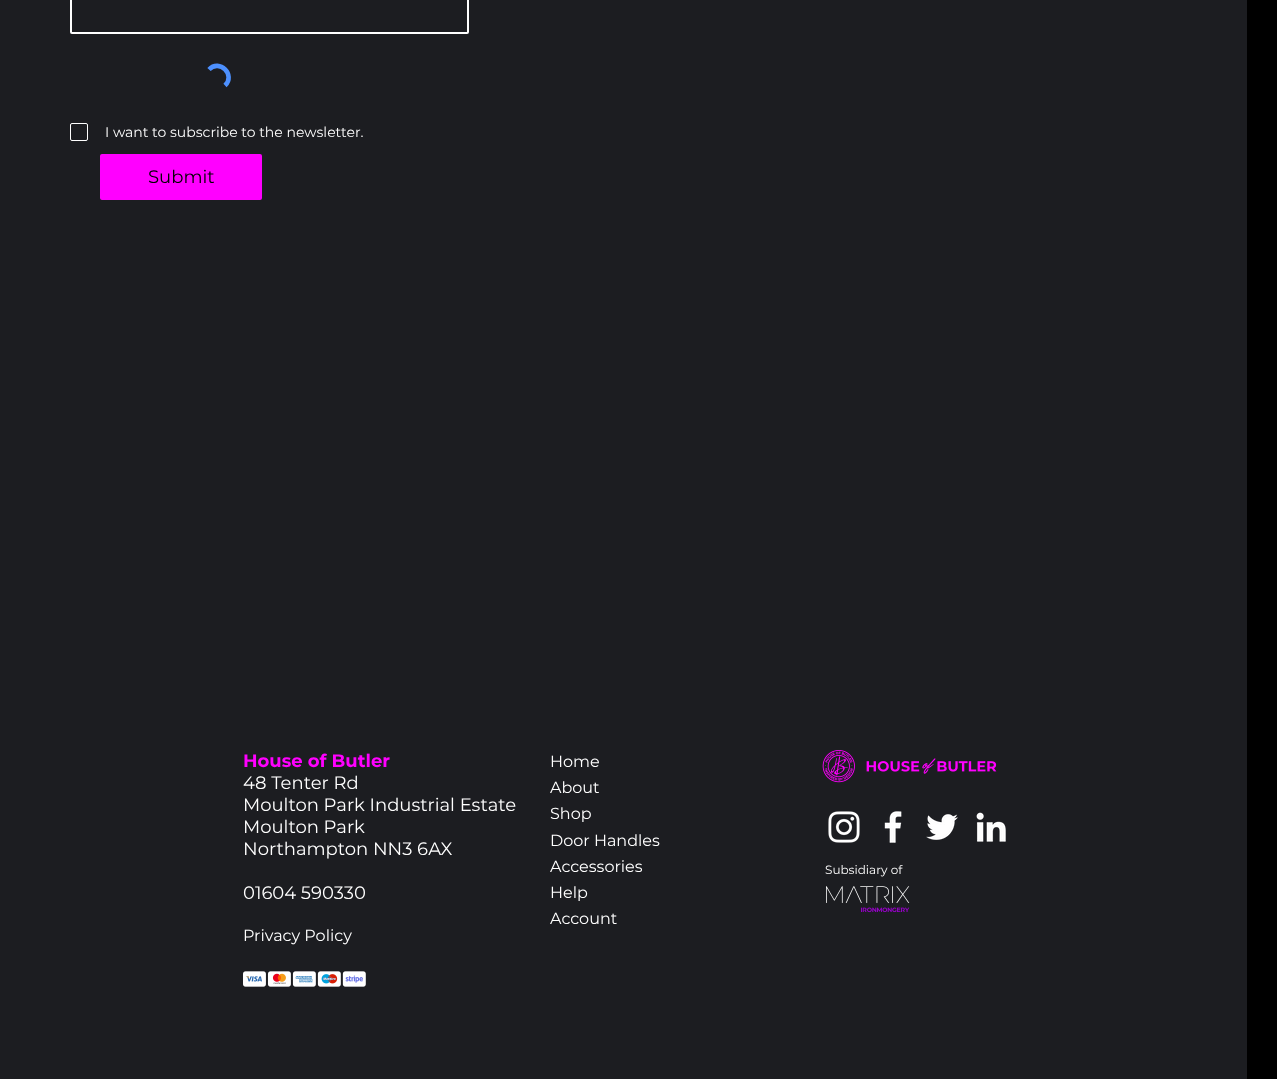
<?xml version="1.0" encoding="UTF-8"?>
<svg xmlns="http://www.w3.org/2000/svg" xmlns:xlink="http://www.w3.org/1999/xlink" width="1277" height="1079">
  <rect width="100%" height="100%" fill="#000000" />
  <rect width="1247" height="1079" fill="#1c1d21" />
  <rect x="71" y="-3" width="397" height="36" rx="1" fill="none" stroke="#ffffff" stroke-width="2" />
  <path d="M 209 69.5 c 10.5 -11 27 5.5 16 16" fill="none" stroke="#4d90fe" stroke-width="4.6" />
  <rect x="70.5" y="123.5" width="17" height="17" rx="1.5" fill="none" stroke="#ffffff" />
  <rect x="100" y="154" width="162" height="46" rx="2" fill="#ff00ff" />
  <image x="243" y="971" width="123" height="16" xlink:href="image1.png" />
  <image x="822" y="750" width="175" height="33" xlink:href="image2.png" />
  <image x="828" y="811" width="32" height="32" xlink:href="image3.png" />
  <image x="884" y="811" width="18" height="32" xlink:href="image4.png" />
  <image x="926" y="814" width="32" height="26" xlink:href="image5.png" />
  <image x="976" y="812" width="30" height="30" xlink:href="image6.png" />
  <image x="826" y="886" width="84" height="27" xlink:href="image7.png" />
  <text x="105" y="137" style="font-family: Montserrat; font-size: 14px; fill: #ffffff">I want to subscribe to the newsletter.</text>
  <text x="148" y="183" style="font-family: Montserrat; font-size: 18px; fill: #000000">Submit</text>
  <text x="243" y="767" style="font-family: Montserrat; font-size: 18px; font-weight: bold; fill: #ff00ff">House of Butler</text>
  <text x="243" y="789" style="font-family: Montserrat; font-size: 18px; fill: #ffffff">48 Tenter Rd</text>
  <text x="243" y="811" style="font-family: Montserrat; font-size: 18px; fill: #ffffff">Moulton Park Industrial Estate</text>
  <text x="243" y="833" style="font-family: Montserrat; font-size: 18px; fill: #ffffff">Moulton Park</text>
  <text x="243" y="855" style="font-family: Montserrat; font-size: 18px; fill: #ffffff">Northampton NN3 6AX</text>
  <text x="243" y="899" style="font-family: Montserrat; font-size: 18px; fill: #ffffff">01604 590330</text>
  <text x="243" y="941" style="font-family: Montserrat; font-size: 16px; fill: #ffffff">Privacy Policy</text>
  <text x="550" y="767" style="font-family: Montserrat; font-size: 16px; fill: #ffffff">Home</text>
  <text x="550" y="793" style="font-family: Montserrat; font-size: 16px; fill: #ffffff">About</text>
  <text x="550" y="819" style="font-family: Montserrat; font-size: 16px; fill: #ffffff">Shop</text>
  <text x="550" y="846" style="font-family: Montserrat; font-size: 16px; fill: #ffffff">Door Handles</text>
  <text x="550" y="872" style="font-family: Montserrat; font-size: 16px; fill: #ffffff">Accessories</text>
  <text x="550" y="898" style="font-family: Montserrat; font-size: 16px; fill: #ffffff">Help</text>
  <text x="550" y="924" style="font-family: Montserrat; font-size: 16px; fill: #ffffff">Account</text>
  <text x="825" y="874" style="font-family: Montserrat; font-size: 12px; fill: #ffffff">Subsidiary of</text>
</svg>
